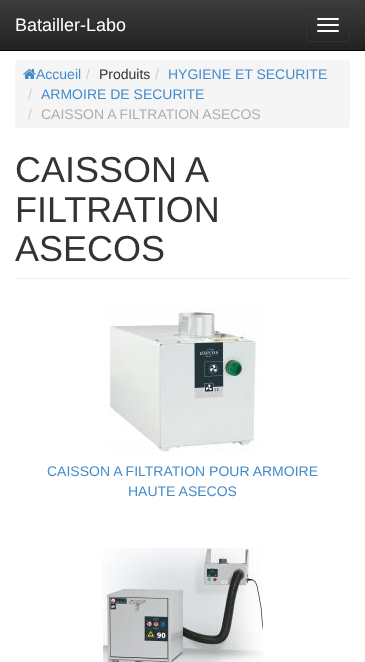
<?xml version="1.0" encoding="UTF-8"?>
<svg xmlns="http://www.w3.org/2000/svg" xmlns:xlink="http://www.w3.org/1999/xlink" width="365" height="662">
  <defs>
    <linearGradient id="g1" gradientUnits="userSpaceOnUse" x1="183" y1="0" x2="183" y2="50"><stop offset="0" stop-color="#3c3c3c" /><stop offset="1" stop-color="#222222" /></linearGradient>
  </defs>
  <rect width="100%" height="100%" fill="#ffffff" />
  <rect width="365" height="50" fill="url(#g1)" />
  <rect y="50" width="365" height="1" fill="#080808" />
  <rect x="306.5" y="8.5" width="43" height="33" rx="3.5" fill="none" stroke="#333333" />
  <rect x="317" y="18" width="22" height="2" rx="1" fill="#ffffff" />
  <rect x="317" y="24" width="22" height="2" rx="1" fill="#ffffff" />
  <rect x="317" y="30" width="22" height="2" rx="1" fill="#ffffff" />
  <rect x="15" y="60" width="335" height="68" rx="4" fill="#f5f5f5" />
  <image x="23" y="69" width="13" height="10" xlink:href="image1.png" />
  <rect x="15" y="278" width="335" height="1" fill="#eeeeee" />
  <image x="106" y="307" width="156" height="145" xlink:href="image2.png" />
  <image x="103" y="548" width="160" height="114" xlink:href="image3.png" />
  <text x="15" y="31" style="font-family: Liberation Sans; font-size: 18px; fill: #ffffff">Batailler-Labo</text>
  <text x="36" y="79" style="font-family: Liberation Sans; font-size: 14px; fill: #428bca">Accueil</text>
  <text x="86" y="79" style="font-family: Liberation Sans; font-size: 14px; fill: #cccccc">/</text>
  <text x="99" y="79" style="font-family: Liberation Sans; font-size: 14px; fill: #333333">Produits</text>
  <text x="155" y="79" style="font-family: Liberation Sans; font-size: 14px; fill: #cccccc">/</text>
  <text x="168" y="79" style="font-family: Liberation Sans; font-size: 14px; fill: #428bca">HYGIENE ET SECURITE</text>
  <text x="28" y="99" style="font-family: Liberation Sans; font-size: 14px; fill: #cccccc">/</text>
  <text x="41" y="99" style="font-family: Liberation Sans; font-size: 14px; fill: #428bca">ARMOIRE DE SECURITE</text>
  <text x="28" y="119" style="font-family: Liberation Sans; font-size: 14px; fill: #cccccc">/</text>
  <text x="41" y="119" style="font-family: Liberation Sans; font-size: 14px; fill: #aeaeae">CAISSON A FILTRATION ASECOS</text>
  <text x="15" y="182" style="font-family: Liberation Sans; font-size: 36px; fill: #333333">CAISSON A</text>
  <text x="15" y="222" style="font-family: Liberation Sans; font-size: 36px; fill: #333333">FILTRATION</text>
  <text x="15" y="261" style="font-family: Liberation Sans; font-size: 36px; fill: #333333">ASECOS</text>
  <text x="47" y="476" style="font-family: Liberation Sans; font-size: 14px; fill: #428bca">CAISSON A FILTRATION POUR ARMOIRE</text>
  <text x="128" y="496" style="font-family: Liberation Sans; font-size: 14px; fill: #428bca">HAUTE ASECOS</text>
</svg>
